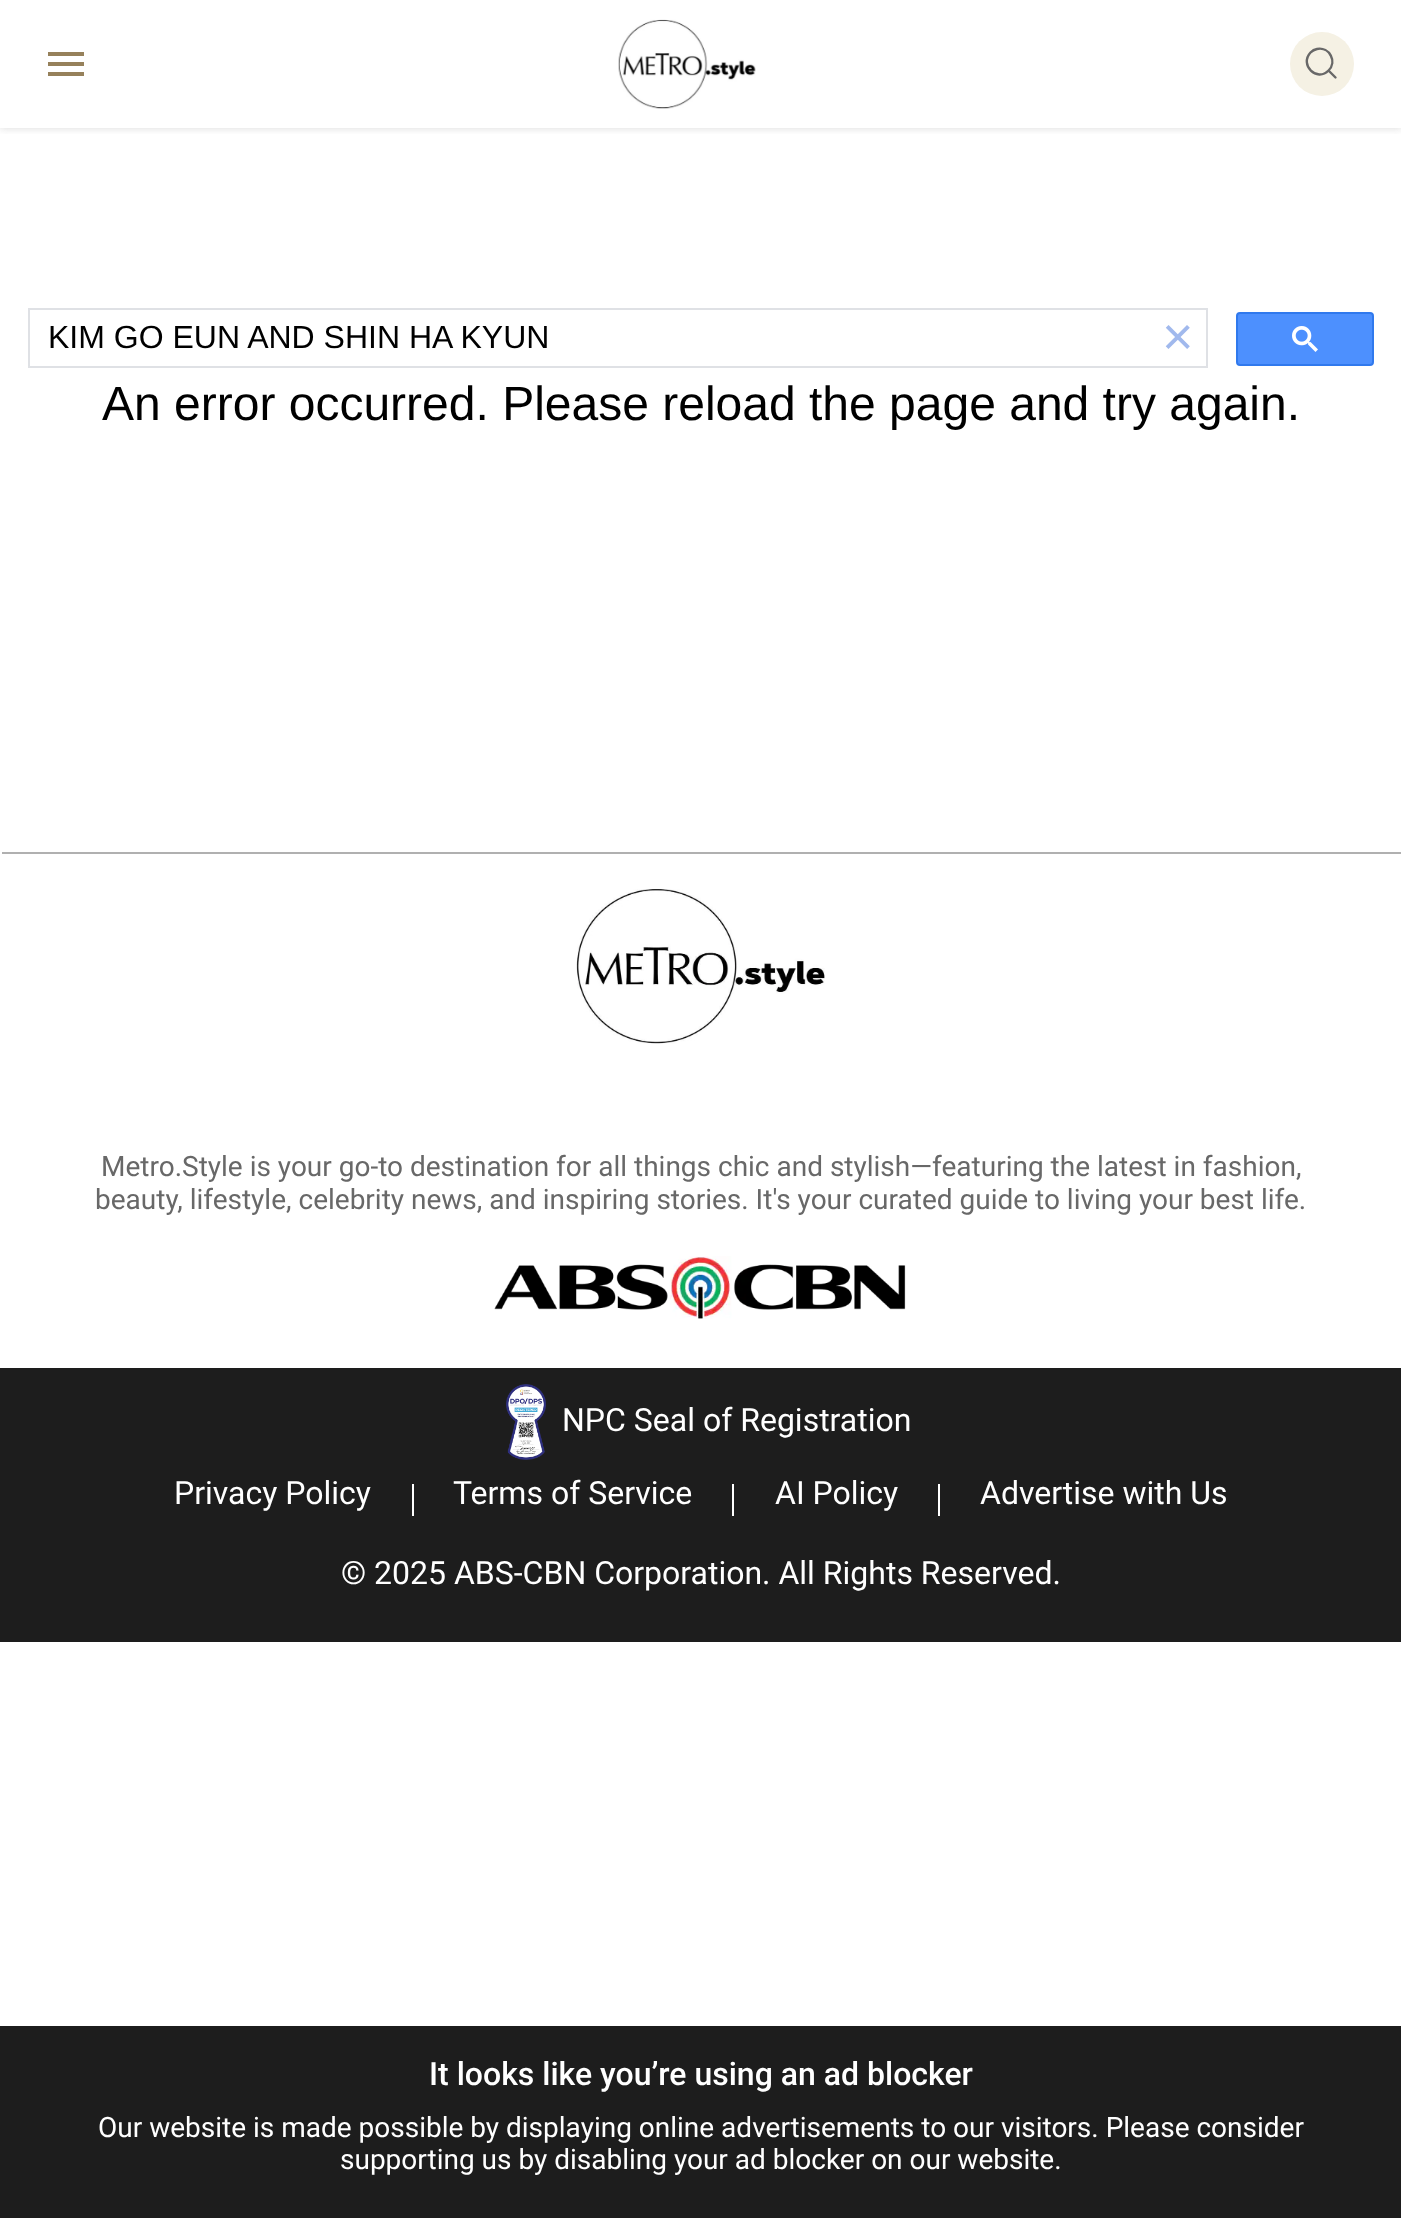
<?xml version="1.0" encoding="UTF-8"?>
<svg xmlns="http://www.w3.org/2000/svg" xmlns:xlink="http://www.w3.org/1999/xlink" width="1401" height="2218">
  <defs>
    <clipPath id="clip1"><rect x="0" y="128" width="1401" height="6" /></clipPath>
  </defs>
  <rect width="100%" height="100%" fill="#ffffff" />
  <g clip-path="url(#clip1)">
    <rect width="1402" height="128" fill="#686868" fill-opacity="0.25" filter="blur(4px)" />
  </g>
  <path d="M 48 52 h 36 v 4 h -36 z m 0 14 v -4 h 36 v 4 z m 0 10 v -4 h 36 v 4 z" fill="#96815b" />
  <image x="618" y="19" width="138" height="90" xlink:href="image1.png" />
  <circle cx="1322" cy="64" r="32" fill="#f5f1e4" />
  <path d="M 1335.5 77.5 l -7 -7 m 0 0 c 9 -8.5 1 -24 -11.5 -21.5 c -2.5 0.5 -4.5 1.5 -6.5 3.5 c -11.5 12.5 6.5 30 18 18 z" fill="none" stroke="#686868" stroke-width="2.4" stroke-linecap="round" stroke-linejoin="round" />
  <rect x="29" y="309" width="1178" height="58" fill="none" stroke="#dfe1e5" stroke-width="2" />
  <rect x="1237" y="313" width="136" height="52" rx="3" fill="#4d90fe" stroke="#3079ed" stroke-width="2" />
  <image x="1292" y="326" width="26" height="26" xlink:href="image2.png" />
  <rect x="2" y="852" width="1399" height="2" fill="#b0b0b0" />
  <image x="576" y="889" width="249" height="155" xlink:href="image3.png" />
  <image x="494" y="1256" width="412" height="63" xlink:href="image4.png" />
  <rect y="1368" width="1401" height="274" fill="#1d1d1d" />
  <image x="506" y="1384" width="40" height="76" xlink:href="image5.png" />
  <rect x="412" y="1484" width="2" height="32" fill="#ffffff" />
  <rect x="732" y="1484" width="2" height="32" fill="#ffffff" />
  <rect x="938" y="1484" width="2" height="32" fill="#ffffff" />
  <rect y="2026" width="1401" height="192" fill="#1d1d1d" />
  <text x="48" y="348" style="font-family: Liberation Sans; font-size: 32px; fill: #000000">KIM GO EUN AND SHIN HA KYUN</text>
  <text x="1162" y="355" style="font-family: Liberation Sans; font-size: 54px; fill: #a1b9ed">×</text>
  <text x="102" y="420" style="font-family: Liberation Sans; font-size: 48px; fill: #000000">An error occurred. Please reload the page and try again.</text>
  <text x="101" y="1176" style="font-family: Roboto; font-size: 28px; fill: #686868">Metro.Style is your go-to destination for all things chic and stylish—featuring the latest in fashion,</text>
  <text x="95" y="1209" style="font-family: Roboto; font-size: 28px; fill: #686868">beauty, lifestyle, celebrity news, and inspiring stories. It's your curated guide to living your best life.</text>
  <text x="562" y="1431" style="font-family: Roboto; font-size: 32px; fill: #ffffff">NPC Seal of Registration</text>
  <text x="174" y="1504" style="font-family: Roboto; font-size: 32px; fill: #ffffff">Privacy Policy</text>
  <text x="453" y="1504" style="font-family: Roboto; font-size: 32px; fill: #ffffff">Terms of Service</text>
  <text x="775" y="1504" style="font-family: Roboto; font-size: 32px; fill: #ffffff">AI Policy</text>
  <text x="980" y="1504" style="font-family: Roboto; font-size: 32px; fill: #ffffff">Advertise with Us</text>
  <text x="341" y="1584" style="font-family: Roboto; font-size: 32px; fill: #ffffff">© 2025 ABS-CBN Corporation. All Rights Reserved.</text>
  <text x="429" y="2085" style="font-family: Roboto; font-size: 32px; font-weight: 500; fill: #ffffff">It looks like you’re using an ad blocker</text>
  <text x="98" y="2137" style="font-family: Roboto; font-size: 28px; fill: #ffffff">Our website is made possible by displaying online advertisements to our visitors. Please consider</text>
  <text x="340" y="2169" style="font-family: Roboto; font-size: 28px; fill: #ffffff">supporting us by disabling your ad blocker on our website.</text>
</svg>
